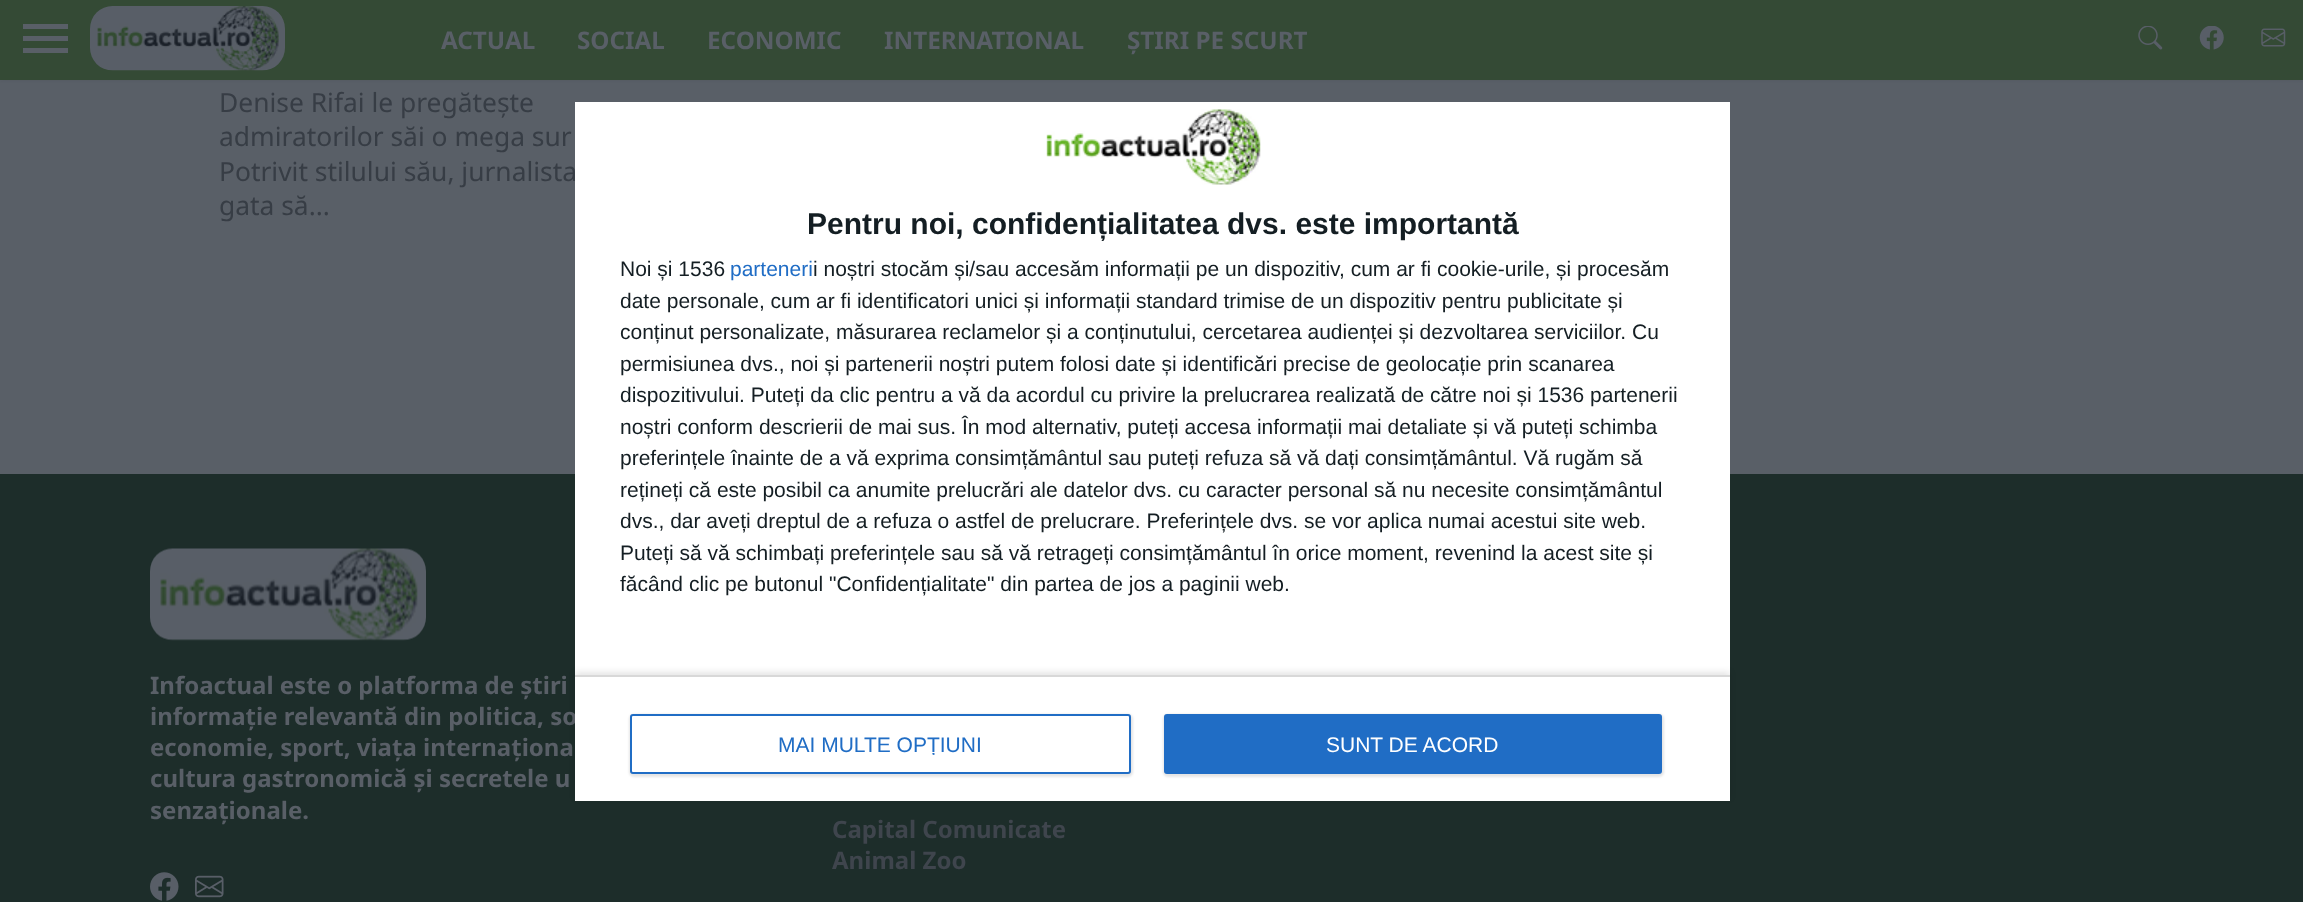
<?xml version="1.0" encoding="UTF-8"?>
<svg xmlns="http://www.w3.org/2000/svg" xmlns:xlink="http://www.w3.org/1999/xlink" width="2303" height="902">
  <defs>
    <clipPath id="clip1"><path d="M 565 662 h 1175 v 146 h -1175 z m 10 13 h 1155 v 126 h -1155 z" clip-rule="evenodd" /></clipPath>
    <clipPath id="clip2"><rect x="779" y="734" width="204" height="21" /></clipPath>
  </defs>
  <rect width="100%" height="100%" fill="#595f67" />
  <rect y="3" width="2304" height="75" fill="#191f27" fill-opacity="0.3" filter="blur(2px)" />
  <rect width="2303" height="80" fill="#344a35" />
  <rect x="23" y="24" width="45" height="5" fill="#595f67" />
  <rect x="23" y="36" width="45" height="5" fill="#595f67" />
  <rect x="23" y="48" width="45" height="5" fill="#595f67" />
  <image x="90" y="6" width="195" height="65" xlink:href="image1.png" />
  <image x="2138" y="26" width="25" height="24" xlink:href="image2.png" />
  <image x="2199" y="26" width="25" height="24" xlink:href="image3.png" />
  <image x="2261" y="28" width="25" height="19" xlink:href="image4.png" />
  <rect y="474" width="2303" height="428" fill="#1d2d2a" />
  <image x="150" y="548" width="276" height="93" xlink:href="image5.png" />
  <image x="150" y="872" width="29" height="29" xlink:href="image6.png" />
  <image x="195" y="875" width="29" height="23" xlink:href="image7.png" />
  <text x="441" y="49" style="font-family: Noto Sans; font-size: 24.25px; font-weight: bold; fill: #595f67">ACTUAL</text>
  <text x="577" y="49" style="font-family: Noto Sans; font-size: 24.25px; font-weight: bold; fill: #595f67">SOCIAL</text>
  <text x="707" y="49" style="font-family: Noto Sans; font-size: 24.25px; font-weight: bold; fill: #595f67">ECONOMIC</text>
  <text x="884" y="49" style="font-family: Noto Sans; font-size: 24.25px; font-weight: bold; fill: #595f67">INTERNATIONAL</text>
  <text x="1127" y="49" style="font-family: Noto Sans; font-size: 24.25px; font-weight: bold; fill: #595f67">ȘTIRI PE SCURT</text>
  <text x="219" y="112" style="font-family: Noto Sans; font-size: 26.4px; fill: #373d45">Denise Rifai le pregătește</text>
  <text x="219" y="146" style="font-family: Noto Sans; font-size: 26.4px; fill: #373d45">admiratorilor săi o mega sur</text>
  <text x="219" y="181" style="font-family: Noto Sans; font-size: 26.4px; fill: #373d45">Potrivit stilului său, jurnalista</text>
  <text x="219" y="215" style="font-family: Noto Sans; font-size: 26.4px; fill: #373d45">gata să...</text>
  <text x="150" y="694" style="font-family: Noto Sans; font-size: 24px; font-weight: bold; fill: #595f67">Infoactual este o platforma de știri</text>
  <text x="150" y="725" style="font-family: Noto Sans; font-size: 24px; font-weight: bold; fill: #595f67">informație relevantă din politica, so</text>
  <text x="150" y="756" style="font-family: Noto Sans; font-size: 24px; font-weight: bold; fill: #595f67">economie, sport, viața internaționa</text>
  <text x="150" y="787" style="font-family: Noto Sans; font-size: 24px; font-weight: bold; fill: #595f67">cultura gastronomică și secretele u</text>
  <text x="150" y="819" style="font-family: Noto Sans; font-size: 24px; font-weight: bold; fill: #595f67">senzaționale.</text>
  <text x="832" y="838" style="font-family: Noto Sans; font-size: 24px; font-weight: bold; fill: #3f454d">Capital Comunicate</text>
  <text x="832" y="869" style="font-family: Noto Sans; font-size: 24px; font-weight: bold; fill: #3f454d">Animal Zoo</text>
  <rect x="575" y="102" width="1155" height="699" fill="#ffffff" />
  <image x="1046" y="109" width="215" height="76" xlink:href="image8.png" />
  <text x="807" y="234" style="font-family: Liberation Sans; font-size: 30px; font-weight: bold; fill: #141e23">Pentru noi, confidențialitatea dvs. este importantă</text>
  <text x="620" y="276" style="font-family: Liberation Sans; font-size: 21px; fill: #141e23">Noi și 1536</text>
  <text x="730" y="276" style="font-family: Liberation Sans; font-size: 21px; fill: #206dc5">parteneri</text>
  <text x="813" y="276" style="font-family: Liberation Sans; font-size: 21px; fill: #141e23">i noștri stocăm și/sau accesăm informații pe un dispozitiv, cum ar fi cookie-urile, și procesăm</text>
  <text x="620" y="308" style="font-family: Liberation Sans; font-size: 21px; fill: #141e23">date personale, cum ar fi identificatori unici și informații standard trimise de un dispozitiv pentru publicitate și</text>
  <text x="620" y="339" style="font-family: Liberation Sans; font-size: 21px; fill: #141e23">conținut personalizate, măsurarea reclamelor și a conținutului, cercetarea audienței și dezvoltarea serviciilor. Cu</text>
  <text x="620" y="371" style="font-family: Liberation Sans; font-size: 21px; fill: #141e23">permisiunea dvs., noi și partenerii noștri putem folosi date și identificări precise de geolocație prin scanarea</text>
  <text x="620" y="402" style="font-family: Liberation Sans; font-size: 21px; fill: #141e23">dispozitivului. Puteți da clic pentru a vă da acordul cu privire la prelucrarea realizată de către noi și 1536 partenerii</text>
  <text x="620" y="434" style="font-family: Liberation Sans; font-size: 21px; fill: #141e23">noștri conform descrierii de mai sus. În mod alternativ, puteți accesa informații mai detaliate și vă puteți schimba</text>
  <text x="620" y="465" style="font-family: Liberation Sans; font-size: 21px; fill: #141e23">preferințele înainte de a vă exprima consimțământul sau puteți refuza să vă dați consimțământul. Vă rugăm să</text>
  <text x="620" y="497" style="font-family: Liberation Sans; font-size: 21px; fill: #141e23">rețineți că este posibil ca anumite prelucrări ale datelor dvs. cu caracter personal să nu necesite consimțământul</text>
  <text x="620" y="528" style="font-family: Liberation Sans; font-size: 21px; fill: #141e23">dvs., dar aveți dreptul de a refuza o astfel de prelucrare. Preferințele dvs. se vor aplica numai acestui site web.</text>
  <text x="620" y="560" style="font-family: Liberation Sans; font-size: 21px; fill: #141e23">Puteți să vă schimbați preferințele sau să vă retrageți consimțământul în orice moment, revenind la acest site și</text>
  <text x="620" y="591" style="font-family: Liberation Sans; font-size: 21px; fill: #141e23">făcând clic pe butonul "Confidențialitate" din partea de jos a paginii web.</text>
  <g clip-path="url(#clip1)">
    <rect x="575" y="672" width="1155" height="126" fill="#000000" fill-opacity="0.1" filter="blur(3px)" />
  </g>
  <rect x="575" y="675" width="1155" height="2" fill="#d8d8d8" />
  <rect x="629" y="714" width="504" height="63" rx="5" fill="#000000" fill-opacity="0.1" filter="blur(1px)" />
  <rect x="631" y="715" width="499" height="58" rx="2" fill="#ffffff" stroke="#206dc5" stroke-width="2" />
  <g clip-path="url(#clip2)">
    <text x="778" y="752" style="font-family: Liberation Sans; font-size: 21px; fill: #206dc5">MAI MULTE OPȚIUNI</text>
  </g>
  <rect x="1163" y="714" width="501" height="63" rx="5" fill="#000000" fill-opacity="0.1" filter="blur(1px)" />
  <rect x="1164" y="714" width="498" height="60" rx="3" fill="#206dc5" />
  <text x="1326" y="752" style="font-family: Liberation Sans; font-size: 21px; fill: #ffffff">SUNT DE ACORD</text>
</svg>
